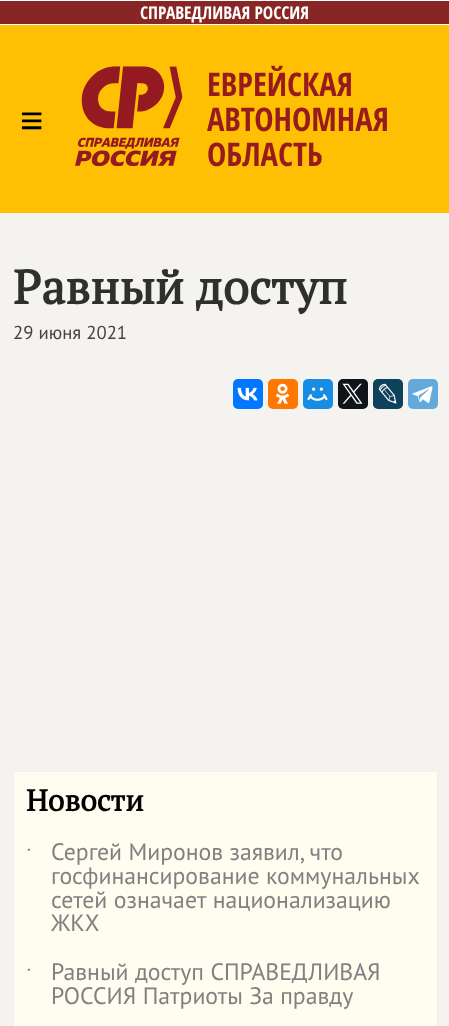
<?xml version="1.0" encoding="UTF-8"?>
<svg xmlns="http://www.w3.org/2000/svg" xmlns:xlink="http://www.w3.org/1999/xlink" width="449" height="1026">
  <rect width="100%" height="100%" fill="#f4f3ef" />
  <rect y="25" width="449" height="188" fill="#ffc003" />
  <rect y="1" width="449" height="23" fill="#882625" />
  <rect width="449" height="1" fill="#ffffff" />
  <rect y="24" width="449" height="1" fill="#ffffff" />
  <image x="75" y="66" width="108" height="100" xlink:href="image1.png" />
  <rect x="233" y="379" width="30" height="30" rx="5" fill="#0077ff" />
  <image x="237" y="387" width="21" height="14" xlink:href="image2.png" />
  <rect x="268" y="379" width="30" height="30" rx="5" fill="#ff7700" />
  <image x="275" y="383" width="15" height="21" xlink:href="image3.png" />
  <rect x="303" y="379" width="30" height="30" rx="5" fill="#168de2" />
  <image x="307" y="387" width="21" height="14" xlink:href="image4.png" />
  <rect x="338" y="379" width="30" height="30" rx="5" fill="#0f1419" />
  <image x="342" y="383" width="21" height="21" xlink:href="image5.png" />
  <rect x="373" y="379" width="30" height="30" rx="5" fill="#0d425a" />
  <image x="378" y="383" width="19" height="21" xlink:href="image6.png" />
  <rect x="408" y="379" width="30" height="30" rx="5" fill="#64a9dc" />
  <image x="412" y="386" width="21" height="17" xlink:href="image7.png" />
  <rect x="13.5" y="771.5" width="424" height="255" fill="#fefdf0" stroke="#f0f0f0" />
  <text x="140" y="19" style="font-family: Open Sans Condensed; font-size: 17.5px; font-weight: bold; fill: #ffffff">СПРАВЕДЛИВАЯ РОССИЯ</text>
  <text x="20" y="134" style="font-family: Liberation Sans; font-size: 40px; fill: #000000">≡</text>
  <text x="207" y="96" style="font-family: Open Sans Condensed; font-size: 32.5px; font-weight: bold; fill: #971b1e">ЕВРЕЙСКАЯ</text>
  <text x="207" y="131" style="font-family: Open Sans Condensed; font-size: 32.5px; font-weight: bold; fill: #971b1e">АВТОНОМНАЯ</text>
  <text x="207" y="166" style="font-family: Open Sans Condensed; font-size: 32.5px; font-weight: bold; fill: #971b1e">ОБЛАСТЬ</text>
  <text x="13" y="304" word-spacing="1" style="font-family: PT Serif; font-size: 47.5px; font-weight: bold; fill: #2f2f2d">Равный доступ</text>
  <text x="13" y="339" style="font-family: PT Sans; font-size: 18.75px; fill: #44433f">29 июня 2021</text>
  <text x="26" y="811" style="font-family: PT Serif; font-size: 30px; font-weight: bold; fill: #000000">Новости</text>
  <text x="26" y="866" style="font-family: Liberation Sans; font-size: 23.75px; fill: #808080">˙</text>
  <text x="51" y="860" style="font-family: PT Sans; font-size: 23.75px; fill: #808080">Сергей Миронов заявил, что</text>
  <text x="51" y="884" style="font-family: PT Sans; font-size: 23.75px; fill: #808080">госфинансирование коммунальных</text>
  <text x="51" y="908" style="font-family: PT Sans; font-size: 23.75px; fill: #808080">сетей означает национализацию</text>
  <text x="51" y="931" style="font-family: PT Sans; font-size: 23.75px; fill: #808080">ЖКХ</text>
  <text x="26" y="986" style="font-family: Liberation Sans; font-size: 23.75px; fill: #808080">˙</text>
  <text x="51" y="980" style="font-family: PT Sans; font-size: 23.75px; fill: #808080">Равный доступ СПРАВЕДЛИВАЯ</text>
  <text x="51" y="1004" style="font-family: PT Sans; font-size: 23.75px; fill: #808080">РОССИЯ Патриоты За правду</text>
</svg>
